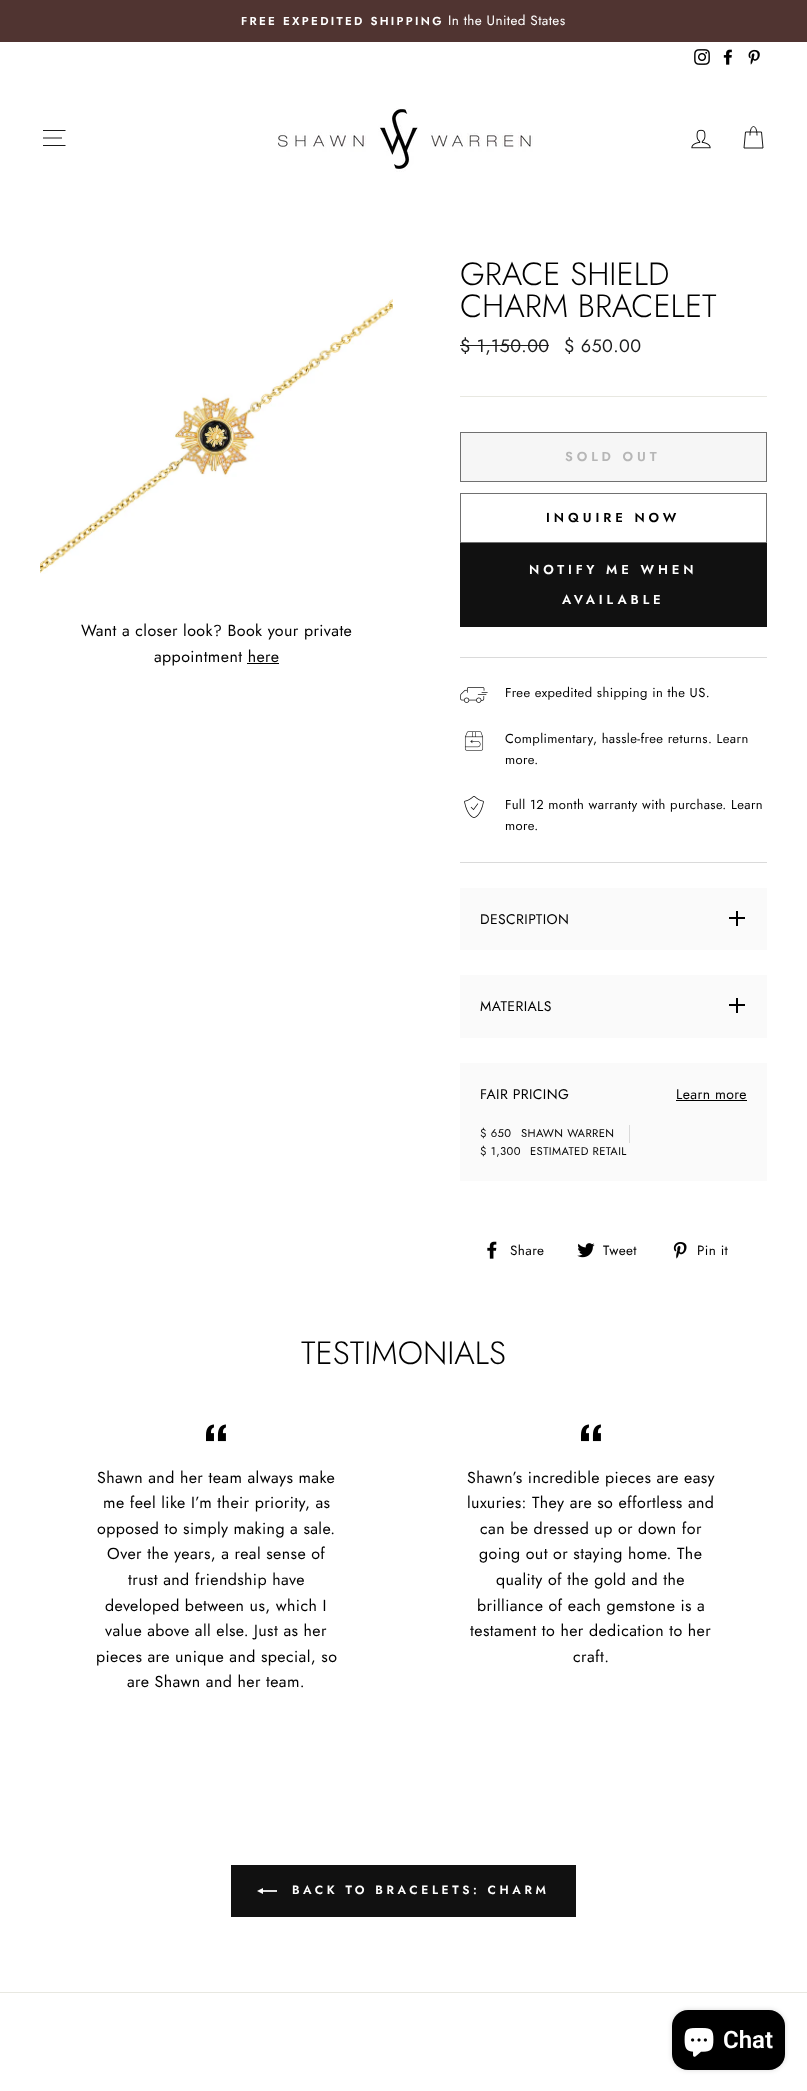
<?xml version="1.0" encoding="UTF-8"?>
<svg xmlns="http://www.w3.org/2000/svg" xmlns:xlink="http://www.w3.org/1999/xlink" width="807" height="2091">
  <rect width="100%" height="100%" fill="#ffffff" />
  <rect width="807" height="42" fill="#503431" />
  <image x="694" y="49" width="16" height="16" xlink:href="image1.png" />
  <image x="723" y="49" width="9" height="16" xlink:href="image2.png" />
  <image x="748" y="49" width="12" height="16" xlink:href="image3.png" />
  <path d="M 43 130.5 h 22.5 m -22.5 7.5 h 19 m -19 7.5 h 22.5" fill="none" stroke="#000000" stroke-width="0.9" />
  <image x="278" y="108" width="255" height="64" xlink:href="image4.png" />
  <image x="691" y="129" width="20" height="20" xlink:href="image5.png" />
  <path d="M 750 135.5 c 0 -12 7 -12 7 0 m -11.5 -3.5 h 16 l 1.5 16 h -19 z" fill="none" stroke="#000000" stroke-width="0.9" />
  <image x="40" y="297" width="353" height="277" xlink:href="image6.png" />
  <rect x="247" y="663" width="32" height="1" fill="#000000" />
  <rect x="460" y="345" width="89" height="1" fill="#1c1d1d" />
  <rect x="460" y="396" width="307" height="1" fill="#e8e8e1" />
  <rect x="460.5" y="432.5" width="306" height="49" fill="#f6f6f6" stroke="#707070" />
  <rect x="460.5" y="493.5" width="306" height="49" fill="none" stroke="#707070" />
  <rect x="460" y="543" width="307" height="84" fill="#111111" />
  <rect x="460" y="657" width="307" height="1" fill="#dadada" />
  <rect x="460" y="862" width="307" height="1" fill="#dadada" />
  <image x="460" y="687" width="28" height="16" xlink:href="image7.png" />
  <image x="464" y="731" width="20" height="20" xlink:href="image8.png" />
  <image x="464" y="796" width="20" height="22" xlink:href="image9.png" />
  <rect x="460" y="888" width="307" height="62" fill="#fafafa" />
  <rect x="729" y="917" width="16" height="2" fill="#000000" />
  <rect x="736" y="911" width="2" height="15" fill="#000000" />
  <rect x="460" y="975" width="307" height="63" fill="#fafafa" />
  <rect x="729" y="1004" width="16" height="2" fill="#000000" />
  <rect x="736" y="998" width="2" height="15" fill="#000000" />
  <rect x="460" y="1063" width="307" height="118" fill="#fafafa" />
  <rect x="676" y="1100" width="71" height="1" fill="#000000" />
  <rect x="629" y="1125" width="1" height="18" fill="#dadada" />
  <image x="487" y="1241" width="10" height="18" xlink:href="image10.png" />
  <image x="577" y="1243" width="18" height="15" xlink:href="image11.png" />
  <image x="673" y="1242" width="14" height="17" xlink:href="image12.png" />
  <image x="206" y="1424" width="20" height="18" xlink:href="image13.png" />
  <image x="581" y="1424" width="20" height="18" xlink:href="image13.png" />
  <rect x="231" y="1865" width="345" height="52" fill="#111111" />
  <image x="257" y="1888" width="20" height="6" xlink:href="image14.png" />
  <rect y="1992" width="807" height="1" fill="#e8e8e1" />
  <rect x="672" y="2010" width="113" height="60" rx="16" fill="#000000" fill-opacity="0.15" filter="blur(2.5px)" />
  <rect x="672" y="2010" width="113" height="60" rx="16" fill="#000000" />
  <image x="684" y="2028" width="30" height="29" xlink:href="image15.png" />
  <text x="241" y="25" style="font-family: Jost; font-size: 11.6px; font-weight: 600; letter-spacing: 2.3px; fill: #ffffff">FREE EXPEDITED SHIPPING</text>
  <text x="448" y="25" style="font-family: Jost; font-size: 13.5px; letter-spacing: 0.4px; fill: #ffffff">In the United States</text>
  <text x="81" y="636" style="font-family: Jost; font-size: 16px; letter-spacing: 0.4px; fill: #000000">Want a closer look? Book your private</text>
  <text x="154" y="662" style="font-family: Jost; font-size: 16px; letter-spacing: 0.4px; fill: #000000">appointment here</text>
  <text x="460" y="285" style="font-family: Jost; font-size: 32.25px; font-weight: 300; fill: #000000">GRACE SHIELD</text>
  <text x="460" y="317" style="font-family: Jost; font-size: 32.25px; font-weight: 300; fill: #000000">CHARM BRACELET</text>
  <text x="460" y="352" style="font-family: Jost; font-size: 18px; letter-spacing: 0.4px; fill: #1c1d1d">$ 1,150.00</text>
  <text x="564" y="352" style="font-family: Jost; font-size: 18px; letter-spacing: 0.4px; fill: #1c1d1d">$ 650.00</text>
  <text x="565" y="461" style="font-family: Jost; font-size: 13px; font-weight: 600; letter-spacing: 3.9px; fill: #b6b6b6">SOLD OUT</text>
  <text x="546" y="522" style="font-family: Jost; font-size: 13px; font-weight: 600; letter-spacing: 3.9px; fill: #000000">INQUIRE NOW</text>
  <text x="529" y="574" style="font-family: Jost; font-size: 13px; font-weight: 600; letter-spacing: 3.9px; fill: #ffffff">NOTIFY ME WHEN</text>
  <text x="562" y="604" style="font-family: Jost; font-size: 13px; font-weight: 600; letter-spacing: 3.9px; fill: #ffffff">AVAILABLE</text>
  <text x="505" y="697" style="font-family: Jost; font-size: 13px; letter-spacing: 0.4px; fill: #000000">Free expedited shipping in the US.</text>
  <text x="505" y="743" style="font-family: Jost; font-size: 13px; letter-spacing: 0.4px; fill: #000000">Complimentary, hassle-free returns. Learn</text>
  <text x="505" y="764" style="font-family: Jost; font-size: 13px; letter-spacing: 0.4px; fill: #000000">more.</text>
  <text x="505" y="809" style="font-family: Jost; font-size: 13px; letter-spacing: 0.4px; fill: #000000">Full 12 month warranty with purchase. Learn</text>
  <text x="505" y="830" style="font-family: Jost; font-size: 13px; letter-spacing: 0.4px; fill: #000000">more.</text>
  <text x="480" y="924" style="font-family: Jost; font-size: 14px; letter-spacing: 0.4px; fill: #000000">DESCRIPTION</text>
  <text x="480" y="1011" style="font-family: Jost; font-size: 14px; letter-spacing: 0.4px; fill: #000000">MATERIALS</text>
  <text x="480" y="1099" style="font-family: Jost; font-size: 14px; letter-spacing: 0.4px; fill: #000000">FAIR PRICING</text>
  <text x="676" y="1099" style="font-family: Jost; font-size: 14px; letter-spacing: 0.4px; fill: #000000">Learn more</text>
  <text x="480" y="1137" style="font-family: Jost; font-size: 11.25px; letter-spacing: 0.4px; fill: #000000">$ 650</text>
  <text x="521" y="1137" style="font-family: Jost; font-size: 11.25px; letter-spacing: 0.4px; fill: #000000">SHAWN WARREN</text>
  <text x="480" y="1155" style="font-family: Jost; font-size: 11.25px; letter-spacing: 0.4px; fill: #000000">$ 1,300</text>
  <text x="530" y="1155" style="font-family: Jost; font-size: 11.25px; letter-spacing: 0.4px; fill: #000000">ESTIMATED RETAIL</text>
  <text x="510" y="1255" style="font-family: Jost; font-size: 13.5px; letter-spacing: 0.4px; fill: #000000">Share</text>
  <text x="603" y="1255" style="font-family: Jost; font-size: 13.5px; letter-spacing: 0.4px; fill: #000000">Tweet</text>
  <text x="697" y="1255" style="font-family: Jost; font-size: 13.5px; letter-spacing: 0.4px; fill: #000000">Pin it</text>
  <text x="301" y="1364" style="font-family: Jost; font-size: 32.25px; font-weight: 300; fill: #000000">TESTIMONIALS</text>
  <text x="97" y="1483" style="font-family: Jost; font-size: 16px; letter-spacing: 0.4px; fill: #000000">Shawn and her team always make</text>
  <text x="103" y="1508" style="font-family: Jost; font-size: 16px; letter-spacing: 0.4px; fill: #000000">me feel like I’m their priority, as</text>
  <text x="97" y="1534" style="font-family: Jost; font-size: 16px; letter-spacing: 0.4px; fill: #000000">opposed to simply making a sale.</text>
  <text x="107" y="1559" style="font-family: Jost; font-size: 16px; letter-spacing: 0.4px; fill: #000000">Over the years, a real sense of</text>
  <text x="128" y="1585" style="font-family: Jost; font-size: 16px; letter-spacing: 0.4px; fill: #000000">trust and friendship have</text>
  <text x="105" y="1611" style="font-family: Jost; font-size: 16px; letter-spacing: 0.4px; fill: #000000">developed between us, which I</text>
  <text x="105" y="1636" style="font-family: Jost; font-size: 16px; letter-spacing: 0.4px; fill: #000000">value above all else. Just as her</text>
  <text x="96" y="1662" style="font-family: Jost; font-size: 16px; letter-spacing: 0.4px; fill: #000000">pieces are unique and special, so</text>
  <text x="127" y="1687" style="font-family: Jost; font-size: 16px; letter-spacing: 0.4px; fill: #000000">are Shawn and her team.</text>
  <text x="467" y="1483" style="font-family: Jost; font-size: 16px; letter-spacing: 0.4px; fill: #000000">Shawn’s incredible pieces are easy</text>
  <text x="467" y="1508" style="font-family: Jost; font-size: 16px; letter-spacing: 0.4px; fill: #000000">luxuries: They are so effortless and</text>
  <text x="480" y="1534" style="font-family: Jost; font-size: 16px; letter-spacing: 0.4px; fill: #000000">can be dressed up or down for</text>
  <text x="479" y="1559" style="font-family: Jost; font-size: 16px; letter-spacing: 0.4px; fill: #000000">going out or staying home. The</text>
  <text x="496" y="1585" style="font-family: Jost; font-size: 16px; letter-spacing: 0.4px; fill: #000000">quality of the gold and the</text>
  <text x="477" y="1611" style="font-family: Jost; font-size: 16px; letter-spacing: 0.4px; fill: #000000">brilliance of each gemstone is a</text>
  <text x="470" y="1636" style="font-family: Jost; font-size: 16px; letter-spacing: 0.4px; fill: #000000">testament to her dedication to her</text>
  <text x="573" y="1662" style="font-family: Jost; font-size: 16px; letter-spacing: 0.4px; fill: #000000">craft.</text>
  <text x="292" y="1894" style="font-family: Jost; font-size: 12px; font-weight: 600; letter-spacing: 3.6px; fill: #ffffff">BACK TO BRACELETS: CHARM</text>
  <text x="723" y="2048" style="font-family: Roboto; font-size: 24px; font-weight: 600; fill: #ffffff">Chat</text>
</svg>
